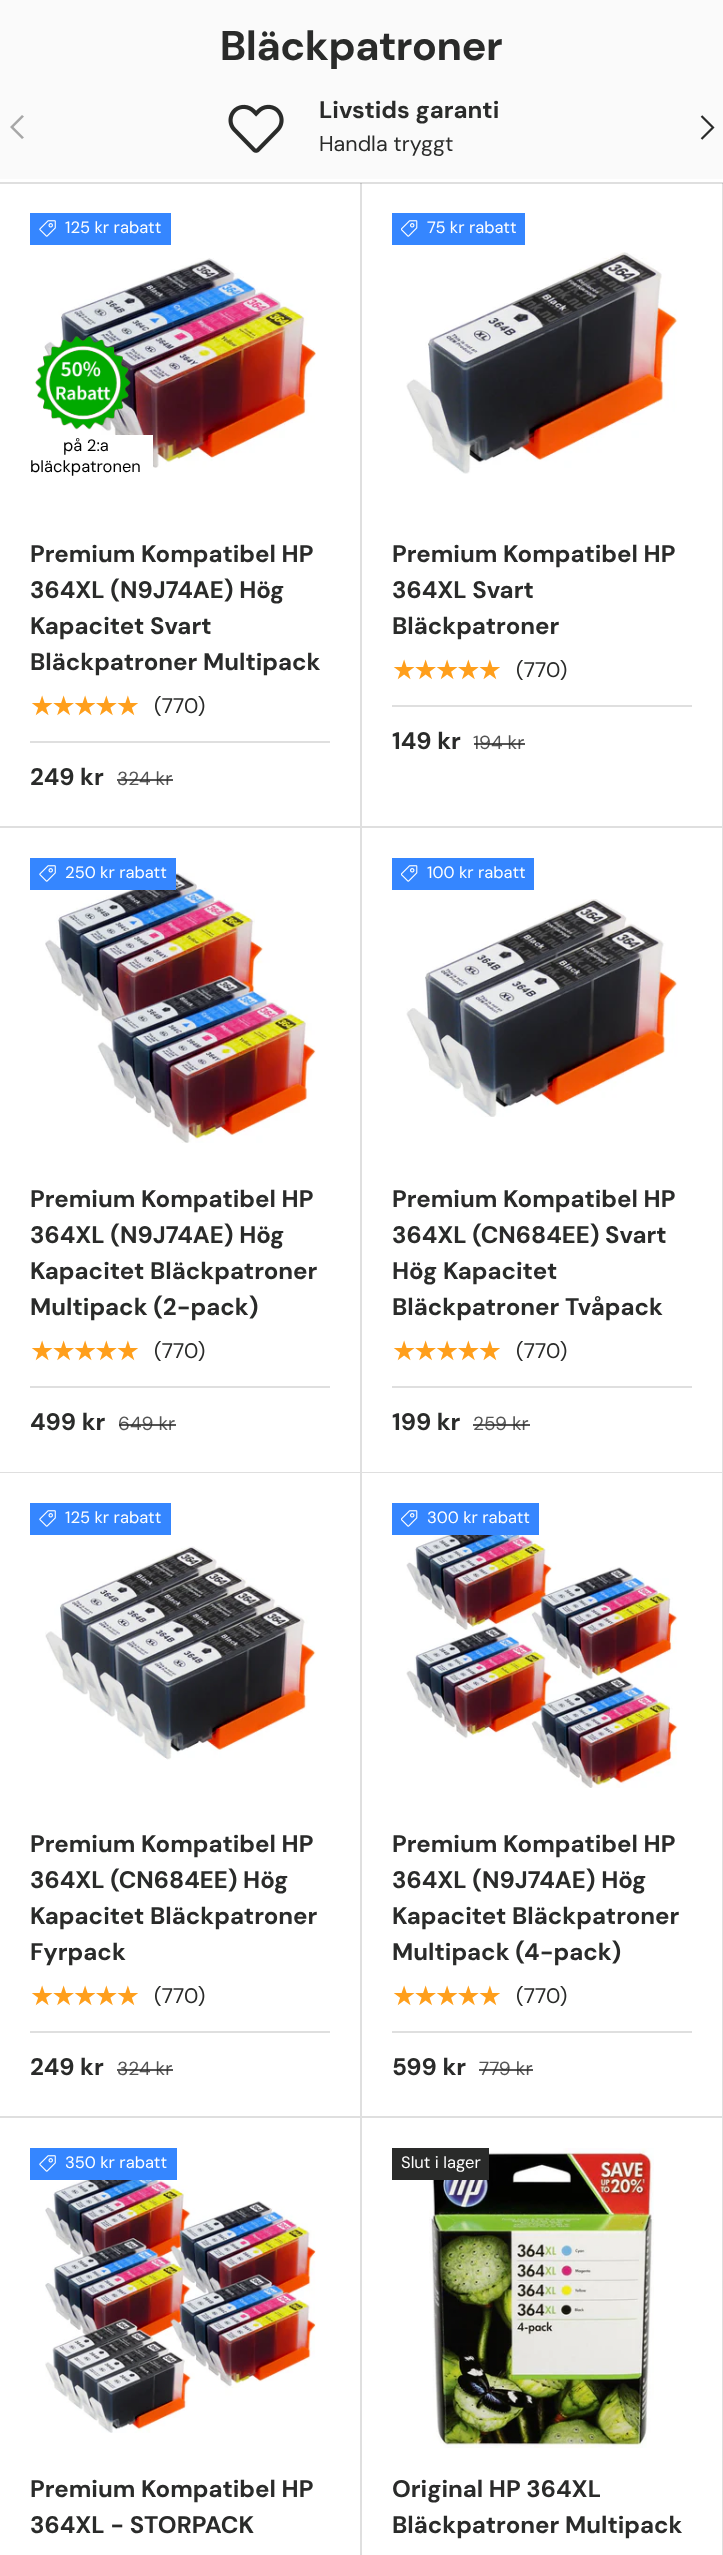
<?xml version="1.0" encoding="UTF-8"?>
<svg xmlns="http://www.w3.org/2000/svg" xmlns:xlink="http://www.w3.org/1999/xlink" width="723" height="2555">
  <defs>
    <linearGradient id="g1" gradientUnits="userSpaceOnUse" x1="30" y1="706" x2="139" y2="706"><stop offset="1" stop-color="#ff9f1c" /><stop offset="1" stop-color="#ffecd2" /></linearGradient>
    <linearGradient id="g2" gradientUnits="userSpaceOnUse" x1="392" y1="670" x2="500" y2="670"><stop offset="1" stop-color="#ff9f1c" /><stop offset="1" stop-color="#ffecd2" /></linearGradient>
    <linearGradient id="g3" gradientUnits="userSpaceOnUse" x1="30" y1="1351" x2="139" y2="1351"><stop offset="1" stop-color="#ff9f1c" /><stop offset="1" stop-color="#ffecd2" /></linearGradient>
    <linearGradient id="g4" gradientUnits="userSpaceOnUse" x1="392" y1="1351" x2="500" y2="1351"><stop offset="1" stop-color="#ff9f1c" /><stop offset="1" stop-color="#ffecd2" /></linearGradient>
    <linearGradient id="g5" gradientUnits="userSpaceOnUse" x1="30" y1="1996" x2="139" y2="1996"><stop offset="1" stop-color="#ff9f1c" /><stop offset="1" stop-color="#ffecd2" /></linearGradient>
    <linearGradient id="g6" gradientUnits="userSpaceOnUse" x1="392" y1="1996" x2="500" y2="1996"><stop offset="1" stop-color="#ff9f1c" /><stop offset="1" stop-color="#ffecd2" /></linearGradient>
  </defs>
  <rect width="100%" height="100%" fill="#ffffff" />
  <rect width="723" height="179" fill="#fafafa" />
  <image x="228" y="104" width="56" height="49" xlink:href="image1.png" />
  <path d="M 10 127 l 12 -12 l 2 1.5 l -10.5 10.5 l 10.5 10.5 l -2 1.5 z" fill="#a7a7a7" />
  <path d="M 701.5 116 l 11.5 11.5 l -11.5 11.5" fill="none" stroke="#2a2b2a" stroke-width="2.2" />
  <rect y="182" width="723" height="2" fill="#dfdfdf" />
  <path d="M 362 183 v 645 l -2 -2 v -643 z" fill="#2a2b2a" fill-opacity="0.15" />
  <path d="M 362 828 h -362 v -2 h 360 z" fill="#2a2b2a" fill-opacity="0.15" />
  <rect x="30" y="213" width="141" height="32" fill="#3586ff" />
  <image x="39" y="220" width="17" height="17" xlink:href="image2.png" />
  <image x="44" y="258" width="272" height="210" xlink:href="image3.png" />
  <image x="35" y="336" width="96" height="94" xlink:href="image4.png" />
  <rect x="114" y="435" width="39" height="32" fill="#ffffff" />
  <rect x="30" y="741" width="300" height="2" fill="#dfdfdf" />
  <path d="M 723 183 v 645 l -1 -2 v -643 z" fill="#2a2b2a" fill-opacity="0.15" />
  <path d="M 723 828 h -361 v -2 h 360 z" fill="#2a2b2a" fill-opacity="0.15" />
  <rect x="392" y="213" width="133" height="32" fill="#3586ff" />
  <image x="401" y="220" width="17" height="17" xlink:href="image5.png" />
  <image x="406" y="252" width="272" height="222" xlink:href="image6.png" />
  <rect x="392" y="705" width="300" height="2" fill="#dfdfdf" />
  <path d="M 362 828 v 645 l -2 -1 v -644 z" fill="#dfdfdf" />
  <path d="M 362 1473 h -362 v -1 h 360 z" fill="#2a2b2a" fill-opacity="0.15" />
  <image x="45" y="873" width="271" height="270" xlink:href="image7.png" />
  <rect x="30" y="858" width="146" height="32" fill="#3586ff" />
  <image x="39" y="865" width="17" height="17" xlink:href="image2.png" />
  <rect x="30" y="1386" width="300" height="2" fill="#dfdfdf" />
  <path d="M 723 828 v 645 l -1 -1 v -644 z" fill="#dfdfdf" />
  <path d="M 723 1473 h -361 v -1 h 360 z" fill="#2a2b2a" fill-opacity="0.15" />
  <rect x="392" y="858" width="142" height="32" fill="#3586ff" />
  <image x="401" y="865" width="17" height="17" xlink:href="image5.png" />
  <image x="406" y="899" width="272" height="218" xlink:href="image8.png" />
  <rect x="392" y="1386" width="300" height="2" fill="#dfdfdf" />
  <path d="M 362 1473 v 645 l -2 -2 v -643 z" fill="#dfdfdf" />
  <path d="M 362 2118 h -362 v -2 h 360 z" fill="#2a2b2a" fill-opacity="0.15" />
  <rect x="30" y="1503" width="141" height="32" fill="#3586ff" />
  <image x="39" y="1510" width="17" height="17" xlink:href="image2.png" />
  <image x="45" y="1546" width="271" height="214" xlink:href="image9.png" />
  <rect x="30" y="2031" width="300" height="2" fill="#dfdfdf" />
  <path d="M 723 1473 v 645 l -1 -2 v -643 z" fill="#dfdfdf" />
  <path d="M 723 2118 h -361 v -2 h 360 z" fill="#2a2b2a" fill-opacity="0.15" />
  <image x="406" y="1518" width="272" height="270" xlink:href="image10.png" />
  <rect x="392" y="1503" width="147" height="32" fill="#3586ff" />
  <image x="401" y="1510" width="17" height="17" xlink:href="image5.png" />
  <rect x="392" y="2031" width="300" height="2" fill="#dfdfdf" />
  <path d="M 362 2118 v 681 l -2 -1 v -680 z" fill="#dfdfdf" />
  <image x="45" y="2163" width="271" height="270" xlink:href="image11.png" />
  <rect x="30" y="2148" width="147" height="32" fill="#3586ff" />
  <image x="39" y="2155" width="17" height="17" xlink:href="image2.png" />
  <path d="M 723 2118 v 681 l -1 -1 v -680 z" fill="#dfdfdf" />
  <image x="429" y="2148" width="225" height="300" xlink:href="image12.png" />
  <rect x="392" y="2148" width="97" height="32" fill="#2a2b2a" />
  <text x="220" y="60" style="font-family: DM Sans; font-size: 41.5px; font-weight: bold; fill: #2a2b2a">Bläckpatroner</text>
  <text x="319" y="118" style="font-family: 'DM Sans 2'; font-size: 24px; font-weight: bold; fill: #2a2b2a">Livstids garanti</text>
  <text x="319" y="151" style="font-family: DM Sans; font-size: 21.5px; fill: #2a2b2a">Handla tryggt</text>
  <text x="65" y="233" style="font-family: 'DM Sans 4'; font-size: 16.5px; fill: #ffffff">125 kr rabatt</text>
  <text x="63" y="451" style="font-family: 'DM Sans 4'; font-size: 16.5px; fill: #000000">på 2:a</text>
  <text x="30" y="472" style="font-family: 'DM Sans 4'; font-size: 16.5px; fill: #000000">bläckpatronen</text>
  <text x="30" y="562" style="font-family: 'DM Sans 2'; font-size: 24px; font-weight: bold; fill: #2a2b2a">Premium Kompatibel HP</text>
  <text x="30" y="598" style="font-family: 'DM Sans 2'; font-size: 24px; font-weight: bold; fill: #2a2b2a">364XL (N9J74AE) Hög</text>
  <text x="30" y="634" style="font-family: 'DM Sans 2'; font-size: 24px; font-weight: bold; fill: #2a2b2a">Kapacitet Svart</text>
  <text x="30" y="670" style="font-family: 'DM Sans 2'; font-size: 24px; font-weight: bold; fill: #2a2b2a">Bläckpatroner Multipack</text>
  <text x="30" y="715" style="font-family: DejaVu Sans; font-size: 27px; letter-spacing: -2.75px; fill: url(#g1)">★★★★★</text>
  <text x="154" y="713" style="font-family: 'DM Sans 2'; font-size: 21px; fill: #2a2b2a">(770)</text>
  <text x="30" y="785" style="font-family: 'DM Sans 2'; font-size: 24px; font-weight: bold; fill: #2a2b2a">249 kr</text>
  <text x="117" y="785" style="font-family: 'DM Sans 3'; font-size: 19px; fill: #555555">324 kr</text>
  <rect x="117" y="779" width="56" height="2" fill="#2a2b2a" fill-opacity="0.8" />
  <text x="427" y="233" style="font-family: 'DM Sans 4'; font-size: 16.5px; fill: #ffffff">75 kr rabatt</text>
  <text x="392" y="562" style="font-family: 'DM Sans 2'; font-size: 24px; font-weight: bold; fill: #2a2b2a">Premium Kompatibel HP</text>
  <text x="392" y="598" style="font-family: 'DM Sans 2'; font-size: 24px; font-weight: bold; fill: #2a2b2a">364XL Svart</text>
  <text x="392" y="634" style="font-family: 'DM Sans 2'; font-size: 24px; font-weight: bold; fill: #2a2b2a">Bläckpatroner</text>
  <text x="392" y="679" style="font-family: DejaVu Sans; font-size: 27px; letter-spacing: -2.75px; fill: url(#g2)">★★★★★</text>
  <text x="516" y="677" style="font-family: 'DM Sans 2'; font-size: 21px; fill: #2a2b2a">(770)</text>
  <text x="392" y="749" style="font-family: 'DM Sans 2'; font-size: 24px; font-weight: bold; fill: #2a2b2a">149 kr</text>
  <text x="473" y="749" style="font-family: 'DM Sans 3'; font-size: 19px; fill: #555555">194 kr</text>
  <rect x="474" y="743" width="51" height="2" fill="#2a2b2a" fill-opacity="0.8" />
  <text x="65" y="878" style="font-family: 'DM Sans 4'; font-size: 16.5px; fill: #ffffff">250 kr rabatt</text>
  <text x="30" y="1207" style="font-family: 'DM Sans 2'; font-size: 24px; font-weight: bold; fill: #2a2b2a">Premium Kompatibel HP</text>
  <text x="30" y="1243" style="font-family: 'DM Sans 2'; font-size: 24px; font-weight: bold; fill: #2a2b2a">364XL (N9J74AE) Hög</text>
  <text x="30" y="1279" style="font-family: 'DM Sans 2'; font-size: 24px; font-weight: bold; fill: #2a2b2a">Kapacitet Bläckpatroner</text>
  <text x="30" y="1315" style="font-family: 'DM Sans 2'; font-size: 24px; font-weight: bold; fill: #2a2b2a">Multipack (2-pack)</text>
  <text x="30" y="1360" style="font-family: DejaVu Sans; font-size: 27px; letter-spacing: -2.75px; fill: url(#g3)">★★★★★</text>
  <text x="154" y="1358" style="font-family: 'DM Sans 2'; font-size: 21px; fill: #2a2b2a">(770)</text>
  <text x="30" y="1430" style="font-family: 'DM Sans 2'; font-size: 24px; font-weight: bold; fill: #2a2b2a">499 kr</text>
  <text x="118" y="1430" style="font-family: 'DM Sans 3'; font-size: 19px; fill: #555555">649 kr</text>
  <rect x="119" y="1424" width="57" height="2" fill="#2a2b2a" fill-opacity="0.8" />
  <text x="427" y="878" style="font-family: 'DM Sans 4'; font-size: 16.5px; fill: #ffffff">100 kr rabatt</text>
  <text x="392" y="1207" style="font-family: 'DM Sans 2'; font-size: 24px; font-weight: bold; fill: #2a2b2a">Premium Kompatibel HP</text>
  <text x="392" y="1243" style="font-family: 'DM Sans 2'; font-size: 24px; font-weight: bold; fill: #2a2b2a">364XL (CN684EE) Svart</text>
  <text x="392" y="1279" style="font-family: 'DM Sans 2'; font-size: 24px; font-weight: bold; fill: #2a2b2a">Hög Kapacitet</text>
  <text x="392" y="1315" style="font-family: 'DM Sans 2'; font-size: 24px; font-weight: bold; fill: #2a2b2a">Bläckpatroner Tvåpack</text>
  <text x="392" y="1360" style="font-family: DejaVu Sans; font-size: 27px; letter-spacing: -2.75px; fill: url(#g4)">★★★★★</text>
  <text x="516" y="1358" style="font-family: 'DM Sans 2'; font-size: 21px; fill: #2a2b2a">(770)</text>
  <text x="392" y="1430" style="font-family: 'DM Sans 2'; font-size: 24px; font-weight: bold; fill: #2a2b2a">199 kr</text>
  <text x="473" y="1430" style="font-family: 'DM Sans 3'; font-size: 19px; fill: #555555">259 kr</text>
  <rect x="473" y="1424" width="57" height="2" fill="#2a2b2a" fill-opacity="0.8" />
  <text x="65" y="1523" style="font-family: 'DM Sans 4'; font-size: 16.5px; fill: #ffffff">125 kr rabatt</text>
  <text x="30" y="1852" style="font-family: 'DM Sans 2'; font-size: 24px; font-weight: bold; fill: #2a2b2a">Premium Kompatibel HP</text>
  <text x="30" y="1888" style="font-family: 'DM Sans 2'; font-size: 24px; font-weight: bold; fill: #2a2b2a">364XL (CN684EE) Hög</text>
  <text x="30" y="1924" style="font-family: 'DM Sans 2'; font-size: 24px; font-weight: bold; fill: #2a2b2a">Kapacitet Bläckpatroner</text>
  <text x="30" y="1960" style="font-family: 'DM Sans 2'; font-size: 24px; font-weight: bold; fill: #2a2b2a">Fyrpack</text>
  <text x="30" y="2005" style="font-family: DejaVu Sans; font-size: 27px; letter-spacing: -2.75px; fill: url(#g5)">★★★★★</text>
  <text x="154" y="2003" style="font-family: 'DM Sans 2'; font-size: 21px; fill: #2a2b2a">(770)</text>
  <text x="30" y="2075" style="font-family: 'DM Sans 2'; font-size: 24px; font-weight: bold; fill: #2a2b2a">249 kr</text>
  <text x="117" y="2075" style="font-family: 'DM Sans 3'; font-size: 19px; fill: #555555">324 kr</text>
  <rect x="117" y="2069" width="56" height="2" fill="#2a2b2a" fill-opacity="0.8" />
  <text x="427" y="1523" style="font-family: 'DM Sans 4'; font-size: 16.5px; fill: #ffffff">300 kr rabatt</text>
  <text x="392" y="1852" style="font-family: 'DM Sans 2'; font-size: 24px; font-weight: bold; fill: #2a2b2a">Premium Kompatibel HP</text>
  <text x="392" y="1888" style="font-family: 'DM Sans 2'; font-size: 24px; font-weight: bold; fill: #2a2b2a">364XL (N9J74AE) Hög</text>
  <text x="392" y="1924" style="font-family: 'DM Sans 2'; font-size: 24px; font-weight: bold; fill: #2a2b2a">Kapacitet Bläckpatroner</text>
  <text x="392" y="1960" style="font-family: 'DM Sans 2'; font-size: 24px; font-weight: bold; fill: #2a2b2a">Multipack (4-pack)</text>
  <text x="392" y="2005" style="font-family: DejaVu Sans; font-size: 27px; letter-spacing: -2.75px; fill: url(#g6)">★★★★★</text>
  <text x="516" y="2003" style="font-family: 'DM Sans 2'; font-size: 21px; fill: #2a2b2a">(770)</text>
  <text x="392" y="2075" style="font-family: 'DM Sans 2'; font-size: 24px; font-weight: bold; fill: #2a2b2a">599 kr</text>
  <text x="479" y="2075" style="font-family: 'DM Sans 3'; font-size: 19px; fill: #555555">779 kr</text>
  <rect x="479" y="2069" width="54" height="2" fill="#2a2b2a" fill-opacity="0.8" />
  <text x="65" y="2168" style="font-family: 'DM Sans 4'; font-size: 16.5px; fill: #ffffff">350 kr rabatt</text>
  <text x="30" y="2497" style="font-family: 'DM Sans 2'; font-size: 24px; font-weight: bold; fill: #2a2b2a">Premium Kompatibel HP</text>
  <text x="30" y="2533" style="font-family: 'DM Sans 2'; font-size: 24px; font-weight: bold; fill: #2a2b2a">364XL - STORPACK</text>
  <text x="401" y="2168" style="font-family: 'DM Sans 4'; font-size: 16.5px; fill: #ffffff">Slut i lager</text>
  <text x="392" y="2497" style="font-family: 'DM Sans 2'; font-size: 24px; font-weight: bold; fill: #2a2b2a">Original HP 364XL</text>
  <text x="392" y="2533" style="font-family: 'DM Sans 2'; font-size: 24px; font-weight: bold; fill: #2a2b2a">Bläckpatroner Multipack</text>
</svg>
